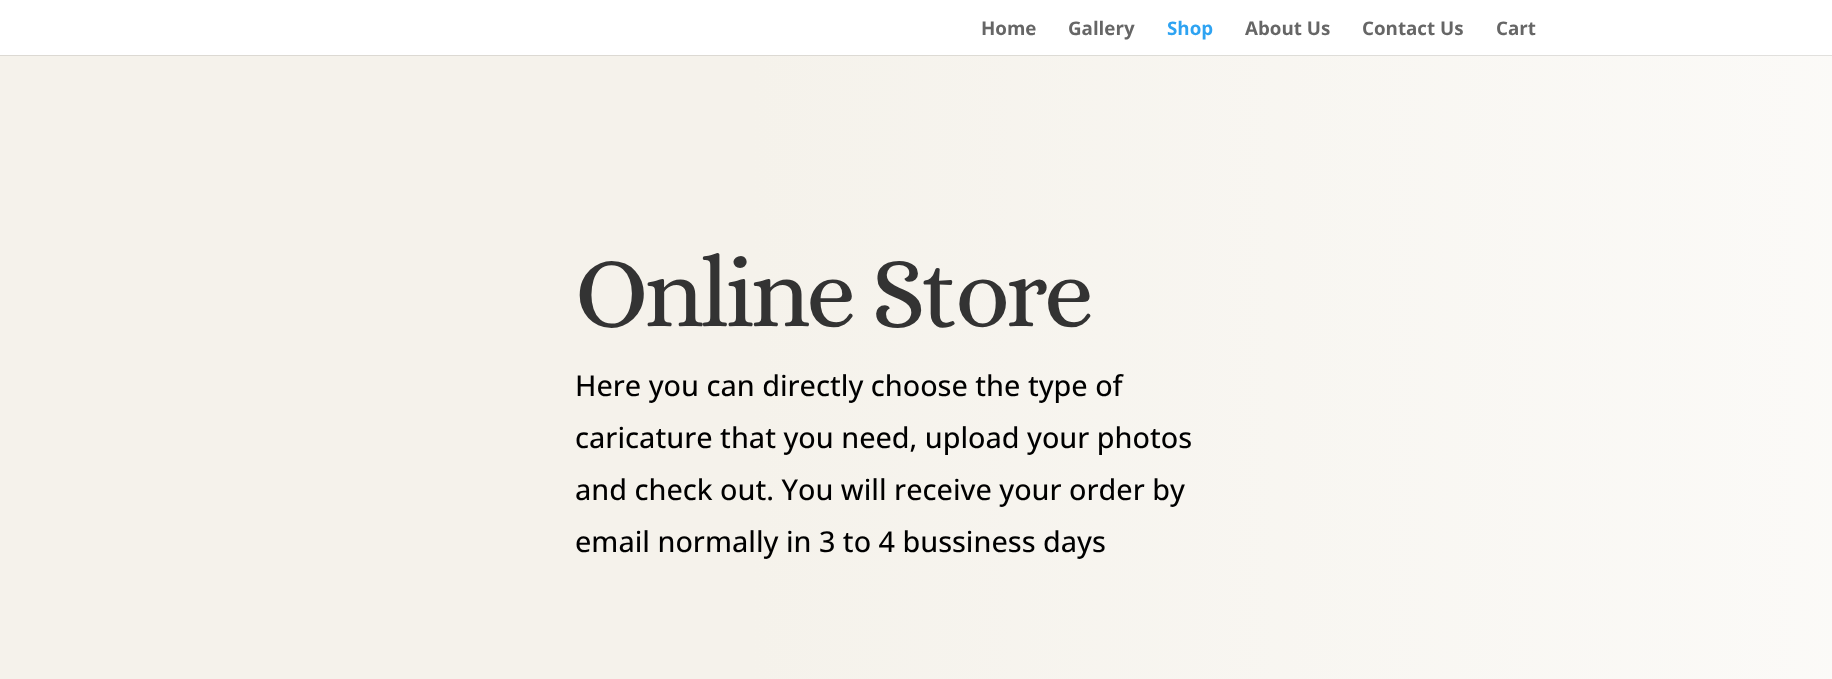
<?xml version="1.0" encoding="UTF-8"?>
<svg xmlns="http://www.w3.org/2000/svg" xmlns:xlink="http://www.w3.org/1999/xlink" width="1832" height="679">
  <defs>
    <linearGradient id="g1" gradientUnits="userSpaceOnUse" x1="0" y1="430" x2="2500" y2="430"><stop offset="0.3" stop-color="#f5f2eb" /><stop offset="1" stop-color="#ffffff" /></linearGradient>
  </defs>
  <rect width="100%" height="100%" fill="#ffffff" />
  <rect y="55" width="1832" height="624" fill="url(#g1)" />
  <path d="M 0 55 v 1 h 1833 v -55 h -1 v 54 z" fill="#000000" fill-opacity="0.1" />
  <text x="981" y="35" style="font-family: Open Sans; font-size: 18.75px; font-weight: bold; fill: #666666">Home</text>
  <text x="1068" y="35" style="font-family: Open Sans; font-size: 18.75px; font-weight: bold; fill: #666666">Gallery</text>
  <text x="1167" y="35" style="font-family: Open Sans; font-size: 18.75px; font-weight: bold; fill: #2ea3f2">Shop</text>
  <text x="1245" y="35" style="font-family: Open Sans; font-size: 18.75px; font-weight: bold; fill: #666666">About Us</text>
  <text x="1362" y="35" style="font-family: Open Sans; font-size: 18.75px; font-weight: bold; fill: #666666">Contact Us</text>
  <text x="1496" y="35" style="font-family: Open Sans; font-size: 18.75px; font-weight: bold; fill: #666666">Cart</text>
  <text x="575" y="326" style="font-family: Alice; font-size: 100px; letter-spacing: -3.75px; fill: #333333">Online Store</text>
  <text x="575" y="396" style="font-family: Open Sans; font-size: 28.75px; font-weight: 500; fill: #000000">Here you can directly choose the type of</text>
  <text x="575" y="448" style="font-family: Open Sans; font-size: 28.75px; font-weight: 500; fill: #000000">caricature that you need, upload your photos</text>
  <text x="575" y="500" style="font-family: Open Sans; font-size: 28.75px; font-weight: 500; fill: #000000">and check out. You will receive your order by</text>
  <text x="575" y="552" style="font-family: Open Sans; font-size: 28.75px; font-weight: 500; fill: #000000">email normally in 3 to 4 bussiness days</text>
</svg>
